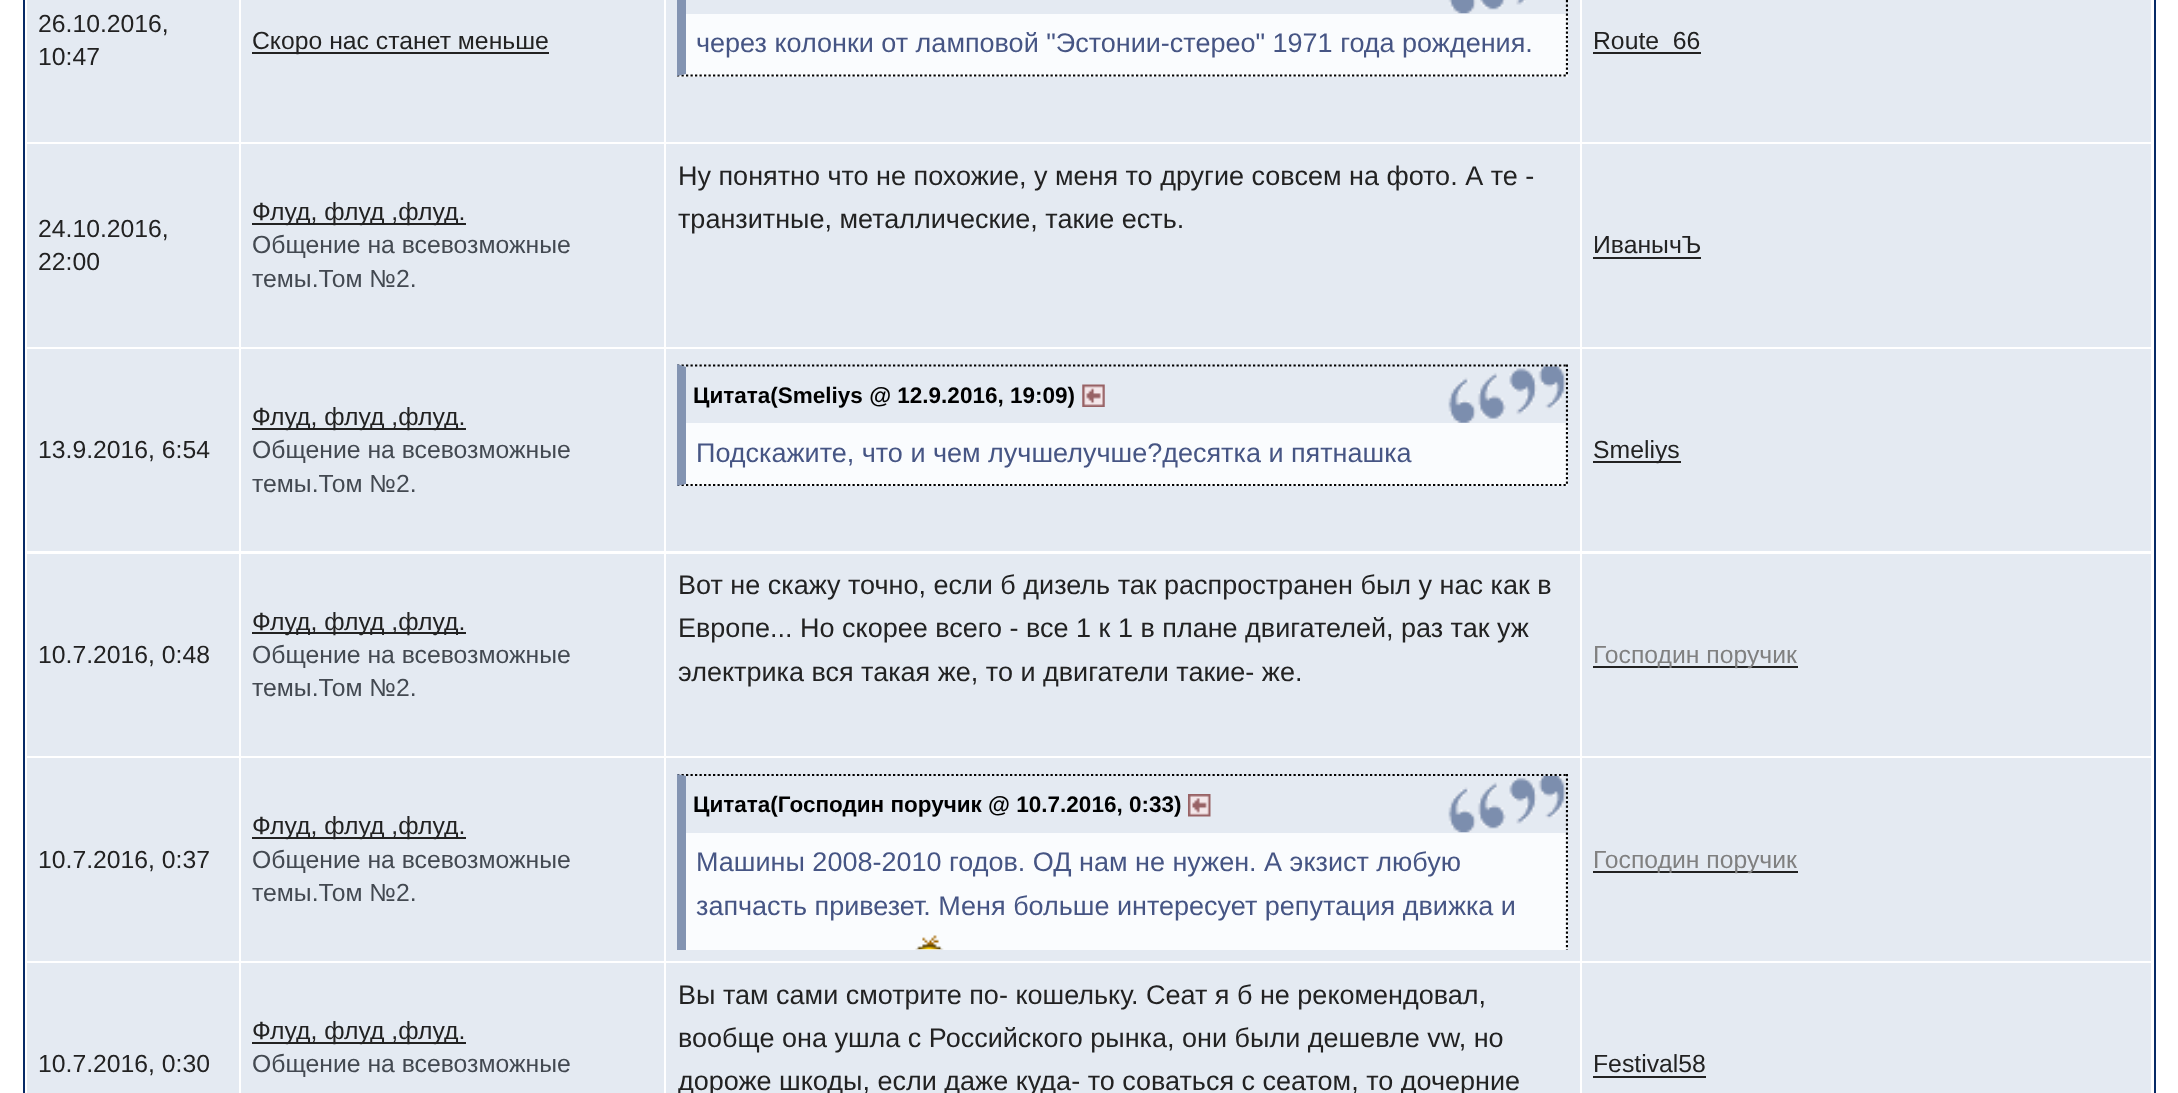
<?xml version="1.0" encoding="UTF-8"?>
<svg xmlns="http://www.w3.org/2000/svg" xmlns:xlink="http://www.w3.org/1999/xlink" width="2178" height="1093">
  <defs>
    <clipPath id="clip1"><rect x="677" width="891" height="131" /></clipPath>
    <clipPath id="clip2"><rect x="677" y="360" width="891" height="180" /></clipPath>
    <clipPath id="clip3"><rect x="677" y="770" width="891" height="180" /></clipPath>
  </defs>
  <rect width="100%" height="100%" fill="#ffffff" />
  <rect x="24" y="-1" width="2131" height="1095" fill="none" stroke="#072a66" stroke-width="2" />
  <rect x="27" width="212" height="142" fill="#e4eaf2" />
  <rect x="241" width="423" height="142" fill="#e4eaf2" />
  <rect x="252" y="52" width="297" height="2" fill="#222222" />
  <rect x="666" width="914" height="142" fill="#e4eaf2" />
  <image x="1448" y="0" width="78" height="14" xlink:href="image1.png" />
  <g clip-path="url(#clip1)">
    <path d="M 1567 -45 v 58.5" fill="none" stroke="#000000" stroke-width="2.2" stroke-dasharray="2.25 2.25" />
  </g>
  <path d="M 677 14 v -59 l 9 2 v 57 z" fill="#8394b2" />
  <rect x="677" y="14" width="891" height="63" fill="#fafcfe" />
  <g clip-path="url(#clip1)">
    <path d="M 1567 13.5 v 63" fill="none" stroke="#000000" stroke-width="2.2" stroke-dasharray="2.25 2.25" />
  </g>
  <path d="M 677 75.5 h 891" fill="none" stroke="#000000" stroke-width="2.2" stroke-dasharray="2.25 2.25" />
  <path d="M 677 76 v -62 h 9 v 60 z" fill="#8394b2" />
  <rect x="1582" width="569" height="142" fill="#e4eaf2" />
  <rect x="1593" y="52" width="108" height="2" fill="#222222" />
  <rect x="27" y="144" width="212" height="203" fill="#e4eaf2" />
  <rect x="241" y="144" width="423" height="203" fill="#e4eaf2" />
  <rect x="252" y="223" width="214" height="2" fill="#222222" />
  <rect x="666" y="144" width="914" height="203" fill="#e4eaf2" />
  <rect x="1582" y="144" width="569" height="203" fill="#e4eaf2" />
  <rect x="1593" y="257" width="108" height="2" fill="#222222" />
  <rect x="27" y="349" width="212" height="202" fill="#e4eaf2" />
  <rect x="241" y="349" width="423" height="202" fill="#e4eaf2" />
  <rect x="252" y="428" width="214" height="2" fill="#222222" />
  <rect x="666" y="349" width="914" height="202" fill="#e4eaf2" />
  <image x="1448" y="366" width="118" height="57" xlink:href="image2.png" />
  <path d="M 677 365.5 h 891" fill="none" stroke="#000000" stroke-width="2.2" stroke-dasharray="2.25 2.25" />
  <g clip-path="url(#clip2)">
    <path d="M 1567 364.5 v 58.5" fill="none" stroke="#000000" stroke-width="2.2" stroke-dasharray="2.25 2.25" />
  </g>
  <path d="M 677 423 v -59 l 9 3 v 56 z" fill="#8394b2" />
  <image x="1082" y="384" width="23" height="23" xlink:href="image3.png" />
  <rect x="679" y="423" width="889" height="63" fill="#fafcfe" />
  <g clip-path="url(#clip2)">
    <path d="M 1567 423 v 63" fill="none" stroke="#000000" stroke-width="2.2" stroke-dasharray="2.25 2.25" />
  </g>
  <path d="M 677 485 h 891" fill="none" stroke="#000000" stroke-width="2.2" stroke-dasharray="2.25 2.25" />
  <path d="M 677 486 v -63 h 9 v 61 z" fill="#8394b2" />
  <rect x="1582" y="349" width="569" height="202" fill="#e4eaf2" />
  <rect x="1593" y="461" width="88" height="2" fill="#222222" />
  <rect x="27" y="554" width="212" height="202" fill="#e4eaf2" />
  <rect x="241" y="554" width="423" height="202" fill="#e4eaf2" />
  <rect x="252" y="632" width="214" height="2" fill="#222222" />
  <rect x="666" y="554" width="914" height="202" fill="#e4eaf2" />
  <rect x="1582" y="554" width="569" height="202" fill="#e4eaf2" />
  <rect x="1593" y="666" width="205" height="2" fill="#222222" />
  <rect x="27" y="758" width="212" height="203" fill="#e4eaf2" />
  <rect x="241" y="758" width="423" height="203" fill="#e4eaf2" />
  <rect x="252" y="837" width="214" height="2" fill="#222222" />
  <rect x="666" y="758" width="914" height="203" fill="#e4eaf2" />
  <image x="1448" y="776" width="118" height="57" xlink:href="image4.png" />
  <path d="M 677 775 h 891" fill="none" stroke="#000000" stroke-width="2.2" stroke-dasharray="2.25 2.25" />
  <g clip-path="url(#clip3)">
    <path d="M 1567 774 v 58.5" fill="none" stroke="#000000" stroke-width="2.2" stroke-dasharray="2.25 2.25" />
  </g>
  <path d="M 677 832 v -58 l 9 2 v 56 z" fill="#8394b2" />
  <image x="1188" y="794" width="23" height="23" xlink:href="image5.png" />
  <rect x="686" y="833" width="882" height="117" fill="#fafcfe" />
  <g clip-path="url(#clip3)">
    <path d="M 1567 832.5 v 166.5" fill="none" stroke="#000000" stroke-width="2.2" stroke-dasharray="2.25 2.25" />
    <path d="M 677 999 v -167 h 9 v 165 z" fill="#8394b2" />
  </g>
  <image x="915" y="935" width="29" height="15" xlink:href="image6.png" />
  <rect x="1582" y="758" width="569" height="203" fill="#e4eaf2" />
  <rect x="1593" y="871" width="205" height="2" fill="#222222" />
  <rect x="27" y="963" width="212" height="130" fill="#e4eaf2" />
  <rect x="241" y="963" width="423" height="130" fill="#e4eaf2" />
  <rect x="252" y="1042" width="214" height="2" fill="#222222" />
  <rect x="666" y="963" width="914" height="130" fill="#e4eaf2" />
  <rect x="1582" y="963" width="569" height="130" fill="#e4eaf2" />
  <rect x="1593" y="1076" width="113" height="2" fill="#222222" />
  <text x="38" y="32" style="font-family: Liberation Sans; font-size: 24.75px; fill: #222222">26.10.2016,</text>
  <text x="38" y="65" style="font-family: Liberation Sans; font-size: 24.75px; fill: #222222">10:47</text>
  <text x="252" y="49" style="font-family: Liberation Sans; font-size: 24.75px; fill: #222222">Скоро нас станет меньше</text>
  <text x="696" y="52" style="font-family: Liberation Sans; font-size: 27px; fill: #465584">через колонки от ламповой "Эстонии-стерео" 1971 года рождения.</text>
  <text x="1593" y="49" style="font-family: Liberation Sans; font-size: 24.75px; fill: #222222">Route_66</text>
  <text x="38" y="237" style="font-family: Liberation Sans; font-size: 24.75px; fill: #222222">24.10.2016,</text>
  <text x="38" y="270" style="font-family: Liberation Sans; font-size: 24.75px; fill: #222222">22:00</text>
  <text x="252" y="220" style="font-family: Liberation Sans; font-size: 24.75px; fill: #222222">Флуд, флуд ,флуд.</text>
  <text x="252" y="253" style="font-family: Liberation Sans; font-size: 24.75px; fill: #434951">Общение на всевозможные</text>
  <text x="252" y="287" style="font-family: Liberation Sans; font-size: 24.75px; fill: #434951">темы.Том №2.</text>
  <text x="678" y="185" style="font-family: Liberation Sans; font-size: 27px; fill: #222222">Ну понятно что не похожие, у меня то другие совсем на фото. А те -</text>
  <text x="678" y="228" style="font-family: Liberation Sans; font-size: 27px; fill: #222222">транзитные, металлические, такие есть.</text>
  <text x="1593" y="253" style="font-family: Liberation Sans; font-size: 24.75px; fill: #222222">ИванычЪ</text>
  <text x="38" y="458" style="font-family: Liberation Sans; font-size: 24.75px; fill: #222222">13.9.2016, 6:54</text>
  <text x="252" y="425" style="font-family: Liberation Sans; font-size: 24.75px; fill: #222222">Флуд, флуд ,флуд.</text>
  <text x="252" y="458" style="font-family: Liberation Sans; font-size: 24.75px; fill: #434951">Общение на всевозможные</text>
  <text x="252" y="492" style="font-family: Liberation Sans; font-size: 24.75px; fill: #434951">темы.Том №2.</text>
  <text x="693" y="403" style="font-family: Liberation Sans; font-size: 22.5px; font-weight: bold; fill: #000000">Цитата(Smeliys @ 12.9.2016, 19:09)</text>
  <text x="696" y="462" style="font-family: Liberation Sans; font-size: 27px; fill: #465584">Подскажите, что и чем лучшелучше?десятка и пятнашка</text>
  <text x="1593" y="458" style="font-family: Liberation Sans; font-size: 24.75px; fill: #222222">Smeliys</text>
  <text x="38" y="663" style="font-family: Liberation Sans; font-size: 24.75px; fill: #222222">10.7.2016, 0:48</text>
  <text x="252" y="630" style="font-family: Liberation Sans; font-size: 24.75px; fill: #222222">Флуд, флуд ,флуд.</text>
  <text x="252" y="663" style="font-family: Liberation Sans; font-size: 24.75px; fill: #434951">Общение на всевозможные</text>
  <text x="252" y="696" style="font-family: Liberation Sans; font-size: 24.75px; fill: #434951">темы.Том №2.</text>
  <text x="678" y="594" style="font-family: Liberation Sans; font-size: 27px; fill: #222222">Вот не скажу точно, если б дизель так распространен был у нас как в</text>
  <text x="678" y="637" style="font-family: Liberation Sans; font-size: 27px; fill: #222222">Европе... Но скорее всего - все 1 к 1 в плане двигателей, раз так уж</text>
  <text x="678" y="681" style="font-family: Liberation Sans; font-size: 27px; fill: #222222">электрика вся такая же, то и двигатели такие- же.</text>
  <text x="1593" y="663" style="font-family: Liberation Sans; font-size: 24.75px; fill: #808080">Господин поручик</text>
  <text x="38" y="868" style="font-family: Liberation Sans; font-size: 24.75px; fill: #222222">10.7.2016, 0:37</text>
  <text x="252" y="834" style="font-family: Liberation Sans; font-size: 24.75px; fill: #222222">Флуд, флуд ,флуд.</text>
  <text x="252" y="868" style="font-family: Liberation Sans; font-size: 24.75px; fill: #434951">Общение на всевозможные</text>
  <text x="252" y="901" style="font-family: Liberation Sans; font-size: 24.75px; fill: #434951">темы.Том №2.</text>
  <text x="693" y="812" style="font-family: Liberation Sans; font-size: 22.5px; font-weight: bold; fill: #000000">Цитата(Господин поручик @ 10.7.2016, 0:33)</text>
  <text x="696" y="871" style="font-family: Liberation Sans; font-size: 27px; fill: #465584">Машины 2008-2010 годов. ОД нам не нужен. А экзист любую</text>
  <text x="696" y="915" style="font-family: Liberation Sans; font-size: 27px; fill: #465584">запчасть привезет. Меня больше интересует репутация движка и</text>
  <text x="1593" y="868" style="font-family: Liberation Sans; font-size: 24.75px; fill: #808080">Господин поручик</text>
  <text x="38" y="1072" style="font-family: Liberation Sans; font-size: 24.75px; fill: #222222">10.7.2016, 0:30</text>
  <text x="252" y="1039" style="font-family: Liberation Sans; font-size: 24.75px; fill: #222222">Флуд, флуд ,флуд.</text>
  <text x="252" y="1072" style="font-family: Liberation Sans; font-size: 24.75px; fill: #434951">Общение на всевозможные</text>
  <text x="678" y="1004" style="font-family: Liberation Sans; font-size: 27px; fill: #222222">Вы там сами смотрите по- кошельку. Сеат я б не рекомендовал,</text>
  <text x="678" y="1047" style="font-family: Liberation Sans; font-size: 27px; fill: #222222">вообще она ушла с Российского рынка, они были дешевле vw, но</text>
  <text x="678" y="1090" style="font-family: Liberation Sans; font-size: 27px; fill: #222222">дороже шкоды, если даже куда- то соваться с сеатом, то дочерние</text>
  <text x="1593" y="1072" style="font-family: Liberation Sans; font-size: 24.75px; fill: #222222">Festival58</text>
</svg>
